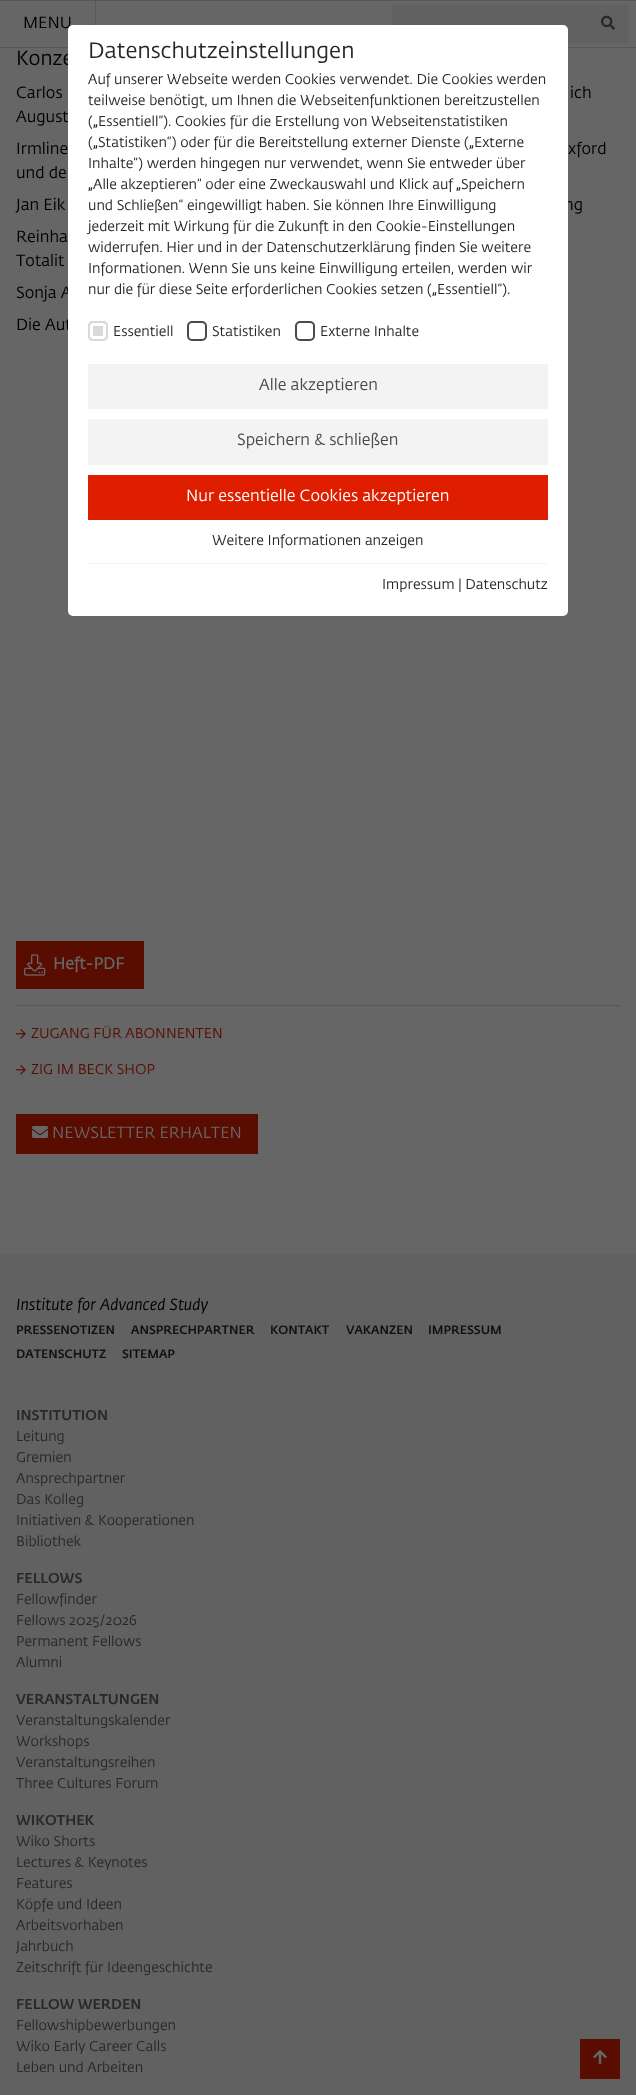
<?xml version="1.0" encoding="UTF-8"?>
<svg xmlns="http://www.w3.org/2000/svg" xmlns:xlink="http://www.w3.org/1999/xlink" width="636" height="2095">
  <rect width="100%" height="100%" fill="#666666" />
  <rect width="636" height="1" fill="#565757" />
  <rect y="47" width="636" height="1" fill="#565757" />
  <rect x="95" y="1" width="1" height="24" fill="#565757" />
  <rect x="392" y="5" width="236" height="38" fill="#616161" />
  <image x="601" y="15" width="14" height="15" xlink:href="image1.png" />
  <rect x="16" y="941" width="128" height="48" fill="#590c00" />
  <image x="24" y="954" width="22" height="22" xlink:href="image2.png" />
  <rect x="16" y="1005" width="604" height="1" fill="#565757" />
  <image x="16" y="1029" width="10" height="10" xlink:href="image3.png" />
  <image x="16" y="1065" width="10" height="10" xlink:href="image3.png" />
  <rect x="16" y="1114" width="242" height="40" fill="#590c00" />
  <image x="32" y="1126" width="16" height="12" xlink:href="image4.png" />
  <rect y="1254" width="636" height="841" fill="#616161" />
  <rect x="580" y="2039" width="40" height="40" fill="#590c00" />
  <image x="593" y="2050" width="14" height="14" xlink:href="image5.png" />
  <text x="23" y="28" style="font-family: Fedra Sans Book; font-size: 16px; fill: #000000">MENU</text>
  <text x="16" y="65" style="font-family: Fedra Sans Book; font-size: 20px; fill: #000000">Konze</text>
  <text x="16" y="98" style="font-family: Fedra Sans Book; font-size: 16px; fill: #000000">Carlos</text>
  <text x="570" y="98" style="font-family: Fedra Sans Book; font-size: 16px; fill: #000000">ich</text>
  <text x="16" y="122" style="font-family: Fedra Sans Book; font-size: 16px; fill: #000000">August</text>
  <text x="16" y="154" style="font-family: Fedra Sans Book; font-size: 16px; fill: #000000">Irmline</text>
  <text x="568" y="154" style="font-family: Fedra Sans Book; font-size: 16px; fill: #000000">xford</text>
  <text x="16" y="178" style="font-family: Fedra Sans Book; font-size: 16px; fill: #000000">und de</text>
  <text x="16" y="210" style="font-family: Fedra Sans Book; font-size: 16px; fill: #000000">Jan Eik</text>
  <text x="564" y="210" style="font-family: Fedra Sans Book; font-size: 16px; fill: #000000">ng</text>
  <text x="16" y="242" style="font-family: Fedra Sans Book; font-size: 16px; fill: #000000">Reinha</text>
  <text x="16" y="266" style="font-family: Fedra Sans Book; font-size: 16px; fill: #000000">Totalit</text>
  <text x="16" y="298" style="font-family: Fedra Sans Book; font-size: 16px; fill: #000000">Sonja A</text>
  <text x="16" y="330" style="font-family: Fedra Sans Book; font-size: 16px; fill: #000000">Die Aut</text>
  <text x="53" y="969" style="font-family: Fedra Sans Book; font-size: 16px; font-weight: bold; fill: #666666">Heft-PDF</text>
  <text x="31" y="1038" style="font-family: Fedra Sans Book; font-size: 14px; fill: #590c00">ZUGANG FÜR ABONNENTEN</text>
  <text x="31" y="1074" style="font-family: Fedra Sans Book; font-size: 14px; fill: #590c00">ZIG IM BECK SHOP</text>
  <text x="52" y="1138" style="font-family: Fedra Sans Book; font-size: 16px; fill: #666666">NEWSLETTER ERHALTEN</text>
  <text x="16" y="1310" style="font-family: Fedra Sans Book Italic; font-size: 16px; font-style: italic; fill: #000000">Institute for Advanced Study</text>
  <text x="16" y="1334" style="font-family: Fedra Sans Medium; font-size: 12px; font-weight: 500; fill: #101010">PRESSENOTIZEN</text>
  <text x="131" y="1334" style="font-family: Fedra Sans Medium; font-size: 12px; font-weight: 500; fill: #101010">ANSPRECHPARTNER</text>
  <text x="270" y="1334" style="font-family: Fedra Sans Medium; font-size: 12px; font-weight: 500; fill: #101010">KONTAKT</text>
  <text x="346" y="1334" style="font-family: Fedra Sans Medium; font-size: 12px; font-weight: 500; fill: #101010">VAKANZEN</text>
  <text x="428" y="1334" style="font-family: Fedra Sans Medium; font-size: 12px; font-weight: 500; fill: #101010">IMPRESSUM</text>
  <text x="16" y="1358" style="font-family: Fedra Sans Medium; font-size: 12px; font-weight: 500; fill: #101010">DATENSCHUTZ</text>
  <text x="122" y="1358" style="font-family: Fedra Sans Medium; font-size: 12px; font-weight: 500; fill: #101010">SITEMAP</text>
  <text x="16" y="1420" style="font-family: Fedra Sans Medium; font-size: 14px; font-weight: 500; fill: #282828">INSTITUTION</text>
  <text x="16" y="1441" style="font-family: Fedra Sans Book; font-size: 14px; fill: #282828">Leitung</text>
  <text x="16" y="1462" style="font-family: Fedra Sans Book; font-size: 14px; fill: #282828">Gremien</text>
  <text x="16" y="1483" style="font-family: Fedra Sans Book; font-size: 14px; fill: #282828">Ansprechpartner</text>
  <text x="16" y="1504" style="font-family: Fedra Sans Book; font-size: 14px; fill: #282828">Das Kolleg</text>
  <text x="16" y="1525" style="font-family: Fedra Sans Book; font-size: 14px; fill: #282828">Initiativen &amp; Kooperationen</text>
  <text x="16" y="1546" style="font-family: Fedra Sans Book; font-size: 14px; fill: #282828">Bibliothek</text>
  <text x="16" y="1583" style="font-family: Fedra Sans Medium; font-size: 14px; font-weight: 500; fill: #282828">FELLOWS</text>
  <text x="16" y="1604" style="font-family: Fedra Sans Book; font-size: 14px; fill: #282828">Fellowfinder</text>
  <text x="16" y="1625" style="font-family: Fedra Sans Book; font-size: 14px; fill: #282828">Fellows 2025/2026</text>
  <text x="16" y="1646" style="font-family: Fedra Sans Book; font-size: 14px; fill: #282828">Permanent Fellows</text>
  <text x="16" y="1667" style="font-family: Fedra Sans Book; font-size: 14px; fill: #282828">Alumni</text>
  <text x="16" y="1704" style="font-family: Fedra Sans Medium; font-size: 14px; font-weight: 500; fill: #282828">VERANSTALTUNGEN</text>
  <text x="16" y="1725" style="font-family: Fedra Sans Book; font-size: 14px; fill: #282828">Veranstaltungskalender</text>
  <text x="16" y="1746" style="font-family: Fedra Sans Book; font-size: 14px; fill: #282828">Workshops</text>
  <text x="16" y="1767" style="font-family: Fedra Sans Book; font-size: 14px; fill: #282828">Veranstaltungsreihen</text>
  <text x="16" y="1788" style="font-family: Fedra Sans Book; font-size: 14px; fill: #282828">Three Cultures Forum</text>
  <text x="16" y="1825" style="font-family: Fedra Sans Medium; font-size: 14px; font-weight: 500; fill: #282828">WIKOTHEK</text>
  <text x="16" y="1846" style="font-family: Fedra Sans Book; font-size: 14px; fill: #282828">Wiko Shorts</text>
  <text x="16" y="1867" style="font-family: Fedra Sans Book; font-size: 14px; fill: #282828">Lectures &amp; Keynotes</text>
  <text x="16" y="1888" style="font-family: Fedra Sans Book; font-size: 14px; fill: #282828">Features</text>
  <text x="16" y="1909" style="font-family: Fedra Sans Book; font-size: 14px; fill: #282828">Köpfe und Ideen</text>
  <text x="16" y="1930" style="font-family: Fedra Sans Book; font-size: 14px; fill: #282828">Arbeitsvorhaben</text>
  <text x="16" y="1951" style="font-family: Fedra Sans Book; font-size: 14px; fill: #282828">Jahrbuch</text>
  <text x="16" y="1972" style="font-family: Fedra Sans Book; font-size: 14px; fill: #282828">Zeitschrift für Ideengeschichte</text>
  <text x="16" y="2009" style="font-family: Fedra Sans Medium; font-size: 14px; font-weight: 500; fill: #282828">FELLOW WERDEN</text>
  <text x="16" y="2030" style="font-family: Fedra Sans Book; font-size: 14px; fill: #282828">Fellowshipbewerbungen</text>
  <text x="16" y="2051" style="font-family: Fedra Sans Book; font-size: 14px; fill: #282828">Wiko Early Career Calls</text>
  <text x="16" y="2072" style="font-family: Fedra Sans Book; font-size: 14px; fill: #282828">Leben und Arbeiten</text>
  <rect x="68" y="25" width="500" height="591" rx="5" fill="#ffffff" />
  <text x="88" y="58" style="font-family: Fedra Sans Book; font-size: 22px; fill: #282828">Datenschutzeinstellungen</text>
  <text x="88" y="84" style="font-family: Fedra Sans Book; font-size: 14px; fill: #282828">Auf unserer Webseite werden Cookies verwendet. Die Cookies werden</text>
  <text x="88" y="105" style="font-family: Fedra Sans Book; font-size: 14px; fill: #282828">teilweise benötigt, um Ihnen die Webseitenfunktionen bereitzustellen</text>
  <text x="88" y="126" style="font-family: Fedra Sans Book; font-size: 14px; fill: #282828">(</text>
  <text x="93" y="126" style="font-family: Roboto; font-size: 14px; fill: #282828">„</text>
  <text x="98" y="126" style="font-family: Fedra Sans Book; font-size: 14px; fill: #282828">Essentiell“). Cookies für die Erstellung von Webseitenstatistiken</text>
  <text x="88" y="147" style="font-family: Fedra Sans Book; font-size: 14px; fill: #282828">(</text>
  <text x="93" y="147" style="font-family: Roboto; font-size: 14px; fill: #282828">„</text>
  <text x="98" y="147" style="font-family: Fedra Sans Book; font-size: 14px; fill: #282828">Statistiken“) oder für die Bereitstellung externer Dienste (</text>
  <text x="469" y="147" style="font-family: Roboto; font-size: 14px; fill: #282828">„</text>
  <text x="474" y="147" style="font-family: Fedra Sans Book; font-size: 14px; fill: #282828">Externe</text>
  <text x="88" y="168" style="font-family: Fedra Sans Book; font-size: 14px; fill: #282828">Inhalte“) werden hingegen nur verwendet, wenn Sie entweder über</text>
  <text x="88" y="189" style="font-family: Roboto; font-size: 14px; fill: #282828">„</text>
  <text x="93" y="189" style="font-family: Fedra Sans Book; font-size: 14px; fill: #282828">Alle akzeptieren“ oder eine Zweckauswahl und Klick auf</text>
  <text x="456" y="189" style="font-family: Roboto; font-size: 14px; fill: #282828">„</text>
  <text x="461" y="189" style="font-family: Fedra Sans Book; font-size: 14px; fill: #282828">Speichern</text>
  <text x="88" y="210" style="font-family: Fedra Sans Book; font-size: 14px; fill: #282828">und Schließen“ eingewilligt haben. Sie können Ihre Einwilligung</text>
  <text x="88" y="231" style="font-family: Fedra Sans Book; font-size: 14px; fill: #282828">jederzeit mit Wirkung für die Zukunft in den Cookie-Einstellungen</text>
  <text x="88" y="252" style="font-family: Fedra Sans Book; font-size: 14px; fill: #282828">widerrufen. Hier und in der Datenschutzerklärung finden Sie weitere</text>
  <text x="88" y="273" style="font-family: Fedra Sans Book; font-size: 14px; fill: #282828">Informationen. Wenn Sie uns keine Einwilligung erteilen, werden wir</text>
  <text x="88" y="294" style="font-family: Fedra Sans Book; font-size: 14px; fill: #282828">nur die für diese Seite erforderlichen Cookies setzen (</text>
  <text x="432" y="294" style="font-family: Roboto; font-size: 14px; fill: #282828">„</text>
  <text x="437" y="294" style="font-family: Fedra Sans Book; font-size: 14px; fill: #282828">Essentiell“).</text>
  <rect x="88" y="321" width="20" height="20" rx="5" fill="#d8dada" />
  <rect x="91.5" y="324.5" width="13" height="13" rx="1.5" fill="none" stroke="#ffffff" stroke-width="3" />
  <rect x="89" y="322" width="18" height="18" rx="4" fill="none" stroke="#d8dada" stroke-width="2" />
  <text x="113" y="336" style="font-family: Fedra Sans Book; font-size: 14px; fill: #282828">Essentiell</text>
  <rect x="188" y="322" width="18" height="18" rx="4" fill="none" stroke="#4a4a4a" stroke-width="2" />
  <text x="212" y="336" style="font-family: Fedra Sans Book; font-size: 14px; fill: #282828">Statistiken</text>
  <rect x="296" y="322" width="18" height="18" rx="4" fill="none" stroke="#4a4a4a" stroke-width="2" />
  <text x="320" y="336" style="font-family: Fedra Sans Book; font-size: 14px; fill: #282828">Externe Inhalte</text>
  <rect x="88" y="364" width="460" height="45" fill="#f3f3f3" />
  <text x="259" y="390" style="font-family: Fedra Sans Book; font-size: 16px; fill: #4a4a4a">Alle akzeptieren</text>
  <rect x="88" y="419" width="460" height="46" fill="#f3f3f3" />
  <text x="237" y="445" style="font-family: Fedra Sans Book; font-size: 16px; fill: #4a4a4a">Speichern &amp; schließen</text>
  <rect x="88" y="475" width="460" height="45" fill="#df1e00" />
  <text x="186" y="501" style="font-family: Fedra Sans Book; font-size: 16px; fill: #ffffff">Nur essentielle Cookies akzeptieren</text>
  <text x="212" y="545" style="font-family: Fedra Sans Book; font-size: 14px; fill: #282828">Weitere Informationen anzeigen</text>
  <rect x="88" y="563" width="460" height="1" fill="#f3f3f3" />
  <text x="382" y="589" style="font-family: Fedra Sans Book; font-size: 14px; fill: #282828">Impressum | Datenschutz</text>
</svg>
